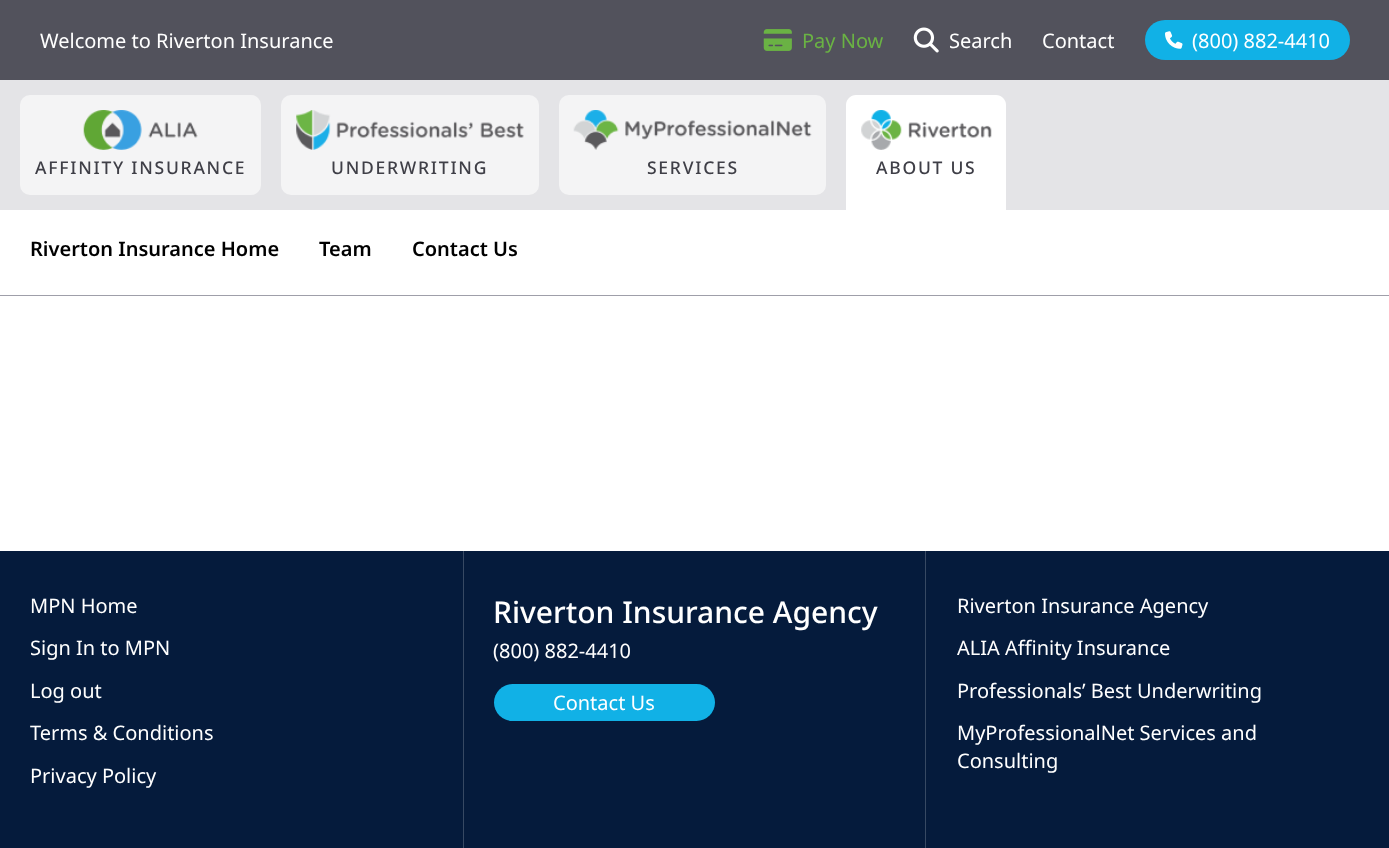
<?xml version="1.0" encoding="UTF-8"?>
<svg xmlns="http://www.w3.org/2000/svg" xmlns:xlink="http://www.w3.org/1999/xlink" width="1389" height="848">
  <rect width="100%" height="100%" fill="#ffffff" />
  <rect width="1389" height="80" fill="#52525c" />
  <image x="763" y="29" width="29" height="22" xlink:href="image1.png" />
  <image x="913" y="27" width="26" height="26" xlink:href="image2.png" />
  <rect x="1145" y="20" width="205" height="40" rx="20" fill="#11b1e6" />
  <image x="1165" y="31" width="18" height="18" xlink:href="image3.png" />
  <rect y="80" width="1389" height="130" fill="#e4e4e7" />
  <rect x="20" y="95" width="241" height="100" rx="10" fill="#f4f4f5" />
  <image x="83" y="110" width="115" height="40" xlink:href="image4.png" />
  <rect x="281" y="95" width="258" height="100" rx="10" fill="#f4f4f5" />
  <image x="296" y="110" width="228" height="40" xlink:href="image5.png" />
  <rect x="559" y="95" width="267" height="100" rx="10" fill="#f4f4f5" />
  <image x="573" y="110" width="239" height="40" xlink:href="image6.png" />
  <path d="M 856 95 h 140 c 5.5 0 10 4.5 10 10 v 105 h -160 v -105 c 0 -5.5 4.5 -10 10 -10 z" fill="#ffffff" />
  <image x="861" y="110" width="131" height="40" xlink:href="image7.png" />
  <rect y="295" width="1389" height="1" fill="#9f9fa9" />
  <rect y="551" width="1389" height="297" fill="#051b3c" />
  <rect x="463" y="551" width="1" height="297" fill="#374963" />
  <rect x="925" y="551" width="1" height="297" fill="#374963" />
  <rect x="494" y="684" width="221" height="37" rx="18.5" fill="#11b1e6" />
  <text x="40" y="48" style="font-family: Noto Sans; font-size: 20px; fill: #ffffff">Welcome to Riverton Insurance</text>
  <text x="802" y="48" style="font-family: Noto Sans; font-size: 20px; fill: #6ab244">Pay Now</text>
  <text x="949" y="48" style="font-family: Noto Sans; font-size: 20px; fill: #ffffff">Search</text>
  <text x="1042" y="48" style="font-family: Noto Sans; font-size: 20px; fill: #ffffff">Contact</text>
  <text x="1192" y="48" style="font-family: Noto Sans; font-size: 20px; fill: #ffffff">(800) 882-4410</text>
  <text x="35" y="174" style="font-family: Noto Sans; font-size: 17.5px; font-weight: 500; letter-spacing: 1.75px; fill: #3f3f47">AFFINITY INSURANCE</text>
  <text x="331" y="174" style="font-family: Noto Sans; font-size: 17.5px; font-weight: 500; letter-spacing: 1.75px; fill: #3f3f47">UNDERWRITING</text>
  <text x="647" y="174" style="font-family: Noto Sans; font-size: 17.5px; font-weight: 500; letter-spacing: 1.75px; fill: #3f3f47">SERVICES</text>
  <text x="876" y="174" style="font-family: Noto Sans; font-size: 17.5px; font-weight: 500; letter-spacing: 1.75px; fill: #3f3f47">ABOUT US</text>
  <text x="30" y="256" style="font-family: Noto Sans; font-size: 20px; font-weight: 600; fill: #000000">Riverton Insurance Home</text>
  <text x="319" y="256" style="font-family: Noto Sans; font-size: 20px; font-weight: 600; fill: #000000">Team</text>
  <text x="412" y="256" style="font-family: Noto Sans; font-size: 20px; font-weight: 600; fill: #000000">Contact Us</text>
  <text x="30" y="613" style="font-family: Noto Sans; font-size: 20px; fill: #ffffff">MPN Home</text>
  <text x="30" y="655" style="font-family: Noto Sans; font-size: 20px; fill: #ffffff">Sign In to MPN</text>
  <text x="30" y="698" style="font-family: Noto Sans; font-size: 20px; fill: #ffffff">Log out</text>
  <text x="30" y="740" style="font-family: Noto Sans; font-size: 20px; fill: #ffffff">Terms &amp; Conditions</text>
  <text x="30" y="783" style="font-family: Noto Sans; font-size: 20px; fill: #ffffff">Privacy Policy</text>
  <text x="493" y="623" style="font-family: Noto Sans; font-size: 30px; font-weight: 500; fill: #ffffff">Riverton Insurance Agency</text>
  <text x="493" y="658" style="font-family: Noto Sans; font-size: 20px; fill: #ffffff">(800) 882-4410</text>
  <text x="553" y="710" style="font-family: Noto Sans; font-size: 20px; fill: #ffffff">Contact Us</text>
  <text x="957" y="613" style="font-family: Noto Sans; font-size: 20px; fill: #ffffff">Riverton Insurance Agency</text>
  <text x="957" y="655" style="font-family: Noto Sans; font-size: 20px; fill: #ffffff">ALIA Affinity Insurance</text>
  <text x="957" y="698" style="font-family: Noto Sans; font-size: 20px; fill: #ffffff">Professionals’ Best Underwriting</text>
  <text x="957" y="740" style="font-family: Noto Sans; font-size: 20px; fill: #ffffff">MyProfessionalNet Services and</text>
  <text x="957" y="768" style="font-family: Noto Sans; font-size: 20px; fill: #ffffff">Consulting</text>
</svg>
